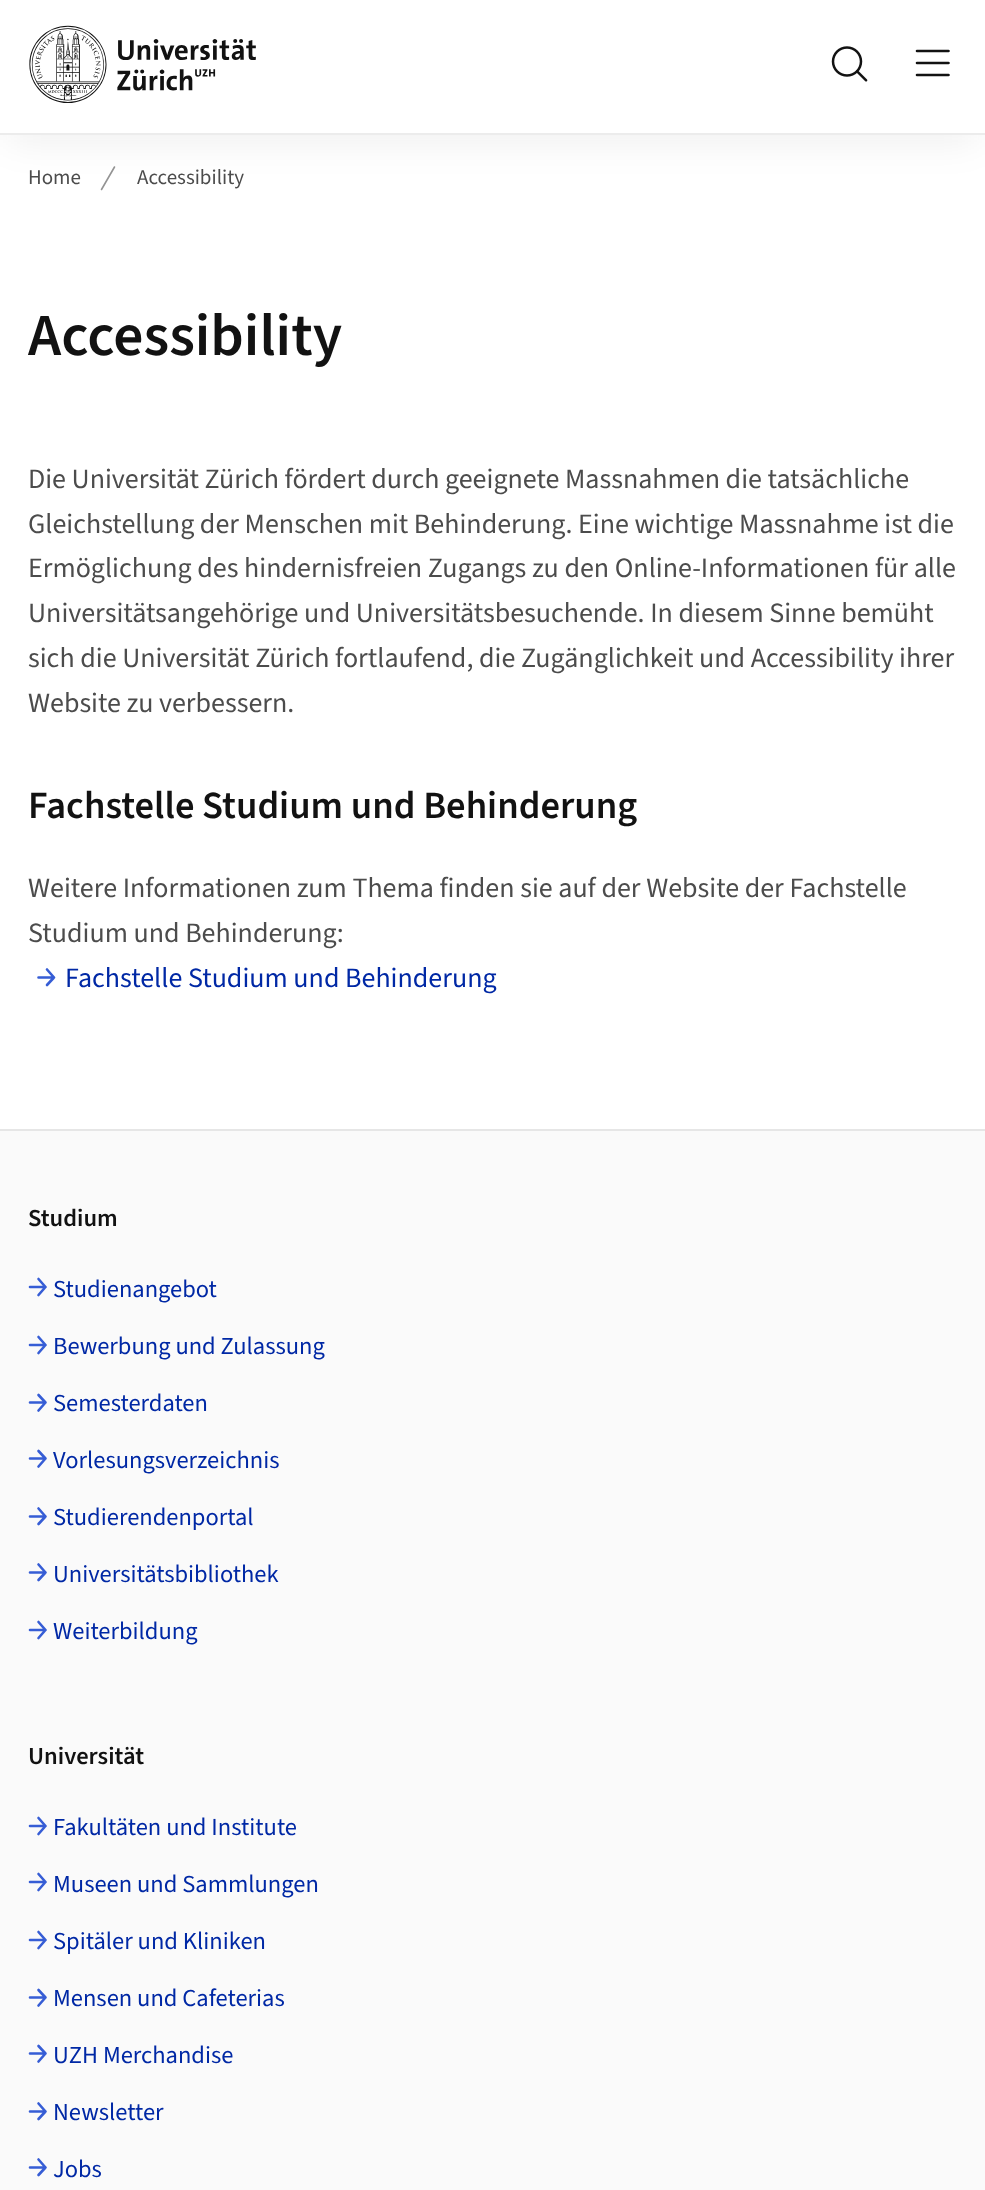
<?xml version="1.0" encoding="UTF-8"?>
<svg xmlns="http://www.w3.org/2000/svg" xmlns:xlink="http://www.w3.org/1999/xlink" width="985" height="2190">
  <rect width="100%" height="100%" fill="#ffffff" />
  <path d="M 101.5 189.5 l 13 -22.5" fill="none" stroke="#949494" stroke-width="1.6" stroke-linecap="round" />
  <rect x="7" y="19" width="971" height="121" fill="#121212" fill-opacity="0.07" filter="blur(19px)" />
  <rect width="985" height="133" fill="#ffffff" />
  <rect y="133" width="985" height="2" fill="#ececec" />
  <image x="29" y="25" width="227" height="78" xlink:href="image1.png" />
  <image x="831" y="46" width="37" height="36" xlink:href="image2.png" />
  <path d="M 917 51 h 31.5 m -31.5 12 h 31.5 m -31.5 12 h 31.5" fill="none" stroke="#121212" stroke-width="2.6" stroke-linecap="round" stroke-linejoin="round" />
  <path d="M 47 969.5 l 7 8 m 0 0 l -7 7.5 m 7 -7.5 h -15.5" fill="none" stroke="#365dd5" stroke-width="2.6" stroke-linecap="round" stroke-linejoin="round" />
  <rect y="1131" width="985" height="1059" fill="#fafafa" />
  <rect y="1129" width="985" height="2" fill="#e6e6e6" />
  <path d="M 38.5 1279 l 7 8 m 0 0 l -7 8 m 7 -8 h -15.5" fill="none" stroke="#365dd5" stroke-width="2.6" stroke-linecap="round" stroke-linejoin="round" />
  <path d="M 38.5 1337 l 7 8 m 0 0 l -7 8 m 7 -8 h -15.5" fill="none" stroke="#365dd5" stroke-width="2.6" stroke-linecap="round" stroke-linejoin="round" />
  <path d="M 38.5 1395 l 7 7.5 m 0 0 l -7 8 m 7 -8 h -15.5" fill="none" stroke="#365dd5" stroke-width="2.6" stroke-linecap="round" stroke-linejoin="round" />
  <path d="M 38.5 1451 l 7 7.5 m 0 0 l -7 8 m 7 -8 h -15.5" fill="none" stroke="#365dd5" stroke-width="2.6" stroke-linecap="round" stroke-linejoin="round" />
  <path d="M 38.5 1508.5 l 7 8 m 0 0 l -7 7.5 m 7 -7.5 h -15.5" fill="none" stroke="#365dd5" stroke-width="2.6" stroke-linecap="round" stroke-linejoin="round" />
  <path d="M 38.5 1564.5 l 7 8 m 0 0 l -7 7.5 m 7 -7.5 h -15.5" fill="none" stroke="#365dd5" stroke-width="2.6" stroke-linecap="round" stroke-linejoin="round" />
  <path d="M 38.5 1622 l 7 8 m 0 0 l -7 8 m 7 -8 h -15.5" fill="none" stroke="#365dd5" stroke-width="2.6" stroke-linecap="round" stroke-linejoin="round" />
  <path d="M 38.5 1818 l 7 8 m 0 0 l -7 8 m 7 -8 h -15.5" fill="none" stroke="#365dd5" stroke-width="2.6" stroke-linecap="round" stroke-linejoin="round" />
  <path d="M 38.5 1874 l 7 8 m 0 0 l -7 8 m 7 -8 h -15.5" fill="none" stroke="#365dd5" stroke-width="2.6" stroke-linecap="round" stroke-linejoin="round" />
  <path d="M 38.5 1932 l 7 8 m 0 0 l -7 8 m 7 -8 h -15.5" fill="none" stroke="#365dd5" stroke-width="2.6" stroke-linecap="round" stroke-linejoin="round" />
  <path d="M 38.5 1990 l 7 7.5 m 0 0 l -7 8 m 7 -8 h -15.5" fill="none" stroke="#365dd5" stroke-width="2.6" stroke-linecap="round" stroke-linejoin="round" />
  <path d="M 38.5 2046 l 7 7.5 m 0 0 l -7 8 m 7 -8 h -15.5" fill="none" stroke="#365dd5" stroke-width="2.6" stroke-linecap="round" stroke-linejoin="round" />
  <path d="M 38.5 2103.5 l 7 8 m 0 0 l -7 7.5 m 7 -7.5 h -15.5" fill="none" stroke="#365dd5" stroke-width="2.6" stroke-linecap="round" stroke-linejoin="round" />
  <path d="M 38.5 2159.5 l 7 8 m 0 0 l -7 7.5 m 7 -7.5 h -15.5" fill="none" stroke="#365dd5" stroke-width="2.6" stroke-linecap="round" stroke-linejoin="round" />
  <text x="28" y="184" style="font-family: 'Source Sans 3'; font-size: 21px; fill: #4c4c4c">Home</text>
  <text x="137" y="184" style="font-family: 'Source Sans 3'; font-size: 21px; fill: #4c4c4c">Accessibility</text>
  <text x="28" y="355" style="font-family: 'Source Sans 3'; font-size: 59.5px; font-weight: 600; fill: #121212">Accessibility</text>
  <text x="28" y="488" style="font-family: 'Source Sans 3'; font-size: 28px; fill: #4c4c4c">Die Universität Zürich fördert durch geeignete Massnahmen die tatsächliche</text>
  <text x="28" y="533" style="font-family: 'Source Sans 3'; font-size: 28px; fill: #4c4c4c">Gleichstellung der Menschen mit Behinderung. Eine wichtige Massnahme ist die</text>
  <text x="28" y="577" style="font-family: 'Source Sans 3'; font-size: 28px; fill: #4c4c4c">Ermöglichung des hindernisfreien Zugangs zu den Online-Informationen für alle</text>
  <text x="28" y="622" style="font-family: 'Source Sans 3'; font-size: 28px; fill: #4c4c4c">Universitätsangehörige und Universitätsbesuchende. In diesem Sinne bemüht</text>
  <text x="28" y="667" style="font-family: 'Source Sans 3'; font-size: 28px; fill: #4c4c4c">sich die Universität Zürich fortlaufend, die Zugänglichkeit und Accessibility ihrer</text>
  <text x="28" y="712" style="font-family: 'Source Sans 3'; font-size: 28px; fill: #4c4c4c">Website zu verbessern.</text>
  <text x="28" y="818" style="font-family: 'Source Sans 3'; font-size: 38.5px; font-weight: 600; fill: #121212">Fachstelle Studium und Behinderung</text>
  <text x="28" y="897" style="font-family: 'Source Sans 3'; font-size: 28px; fill: #4c4c4c">Weitere Informationen zum Thema finden sie auf der Website der Fachstelle</text>
  <text x="28" y="942" style="font-family: 'Source Sans 3'; font-size: 28px; fill: #4c4c4c">Studium und Behinderung:</text>
  <text x="65" y="987" style="font-family: 'Source Sans 3'; font-size: 28px; fill: #0028a5">Fachstelle Studium und Behinderung</text>
  <text x="28" y="1226" style="font-family: 'Source Sans 3'; font-size: 24.5px; font-weight: 600; fill: #121212">Studium</text>
  <text x="53" y="1297" style="font-family: 'Source Sans 3'; font-size: 24.5px; fill: #0028a5">Studienangebot</text>
  <text x="53" y="1354" style="font-family: 'Source Sans 3'; font-size: 24.5px; fill: #0028a5">Bewerbung und Zulassung</text>
  <text x="53" y="1411" style="font-family: 'Source Sans 3'; font-size: 24.5px; fill: #0028a5">Semesterdaten</text>
  <text x="53" y="1468" style="font-family: 'Source Sans 3'; font-size: 24.5px; fill: #0028a5">Vorlesungsverzeichnis</text>
  <text x="53" y="1525" style="font-family: 'Source Sans 3'; font-size: 24.5px; fill: #0028a5">Studierendenportal</text>
  <text x="53" y="1582" style="font-family: 'Source Sans 3'; font-size: 24.5px; fill: #0028a5">Universitätsbibliothek</text>
  <text x="53" y="1639" style="font-family: 'Source Sans 3'; font-size: 24.5px; fill: #0028a5">Weiterbildung</text>
  <text x="28" y="1764" style="font-family: 'Source Sans 3'; font-size: 24.5px; font-weight: 600; fill: #121212">Universität</text>
  <text x="53" y="1835" style="font-family: 'Source Sans 3'; font-size: 24.5px; fill: #0028a5">Fakultäten und Institute</text>
  <text x="53" y="1892" style="font-family: 'Source Sans 3'; font-size: 24.5px; fill: #0028a5">Museen und Sammlungen</text>
  <text x="53" y="1949" style="font-family: 'Source Sans 3'; font-size: 24.5px; fill: #0028a5">Spitäler und Kliniken</text>
  <text x="53" y="2006" style="font-family: 'Source Sans 3'; font-size: 24.5px; fill: #0028a5">Mensen und Cafeterias</text>
  <text x="53" y="2063" style="font-family: 'Source Sans 3'; font-size: 24.5px; fill: #0028a5">UZH Merchandise</text>
  <text x="53" y="2120" style="font-family: 'Source Sans 3'; font-size: 24.5px; fill: #0028a5">Newsletter</text>
  <text x="53" y="2177" style="font-family: 'Source Sans 3'; font-size: 24.5px; fill: #0028a5">Jobs</text>
</svg>
